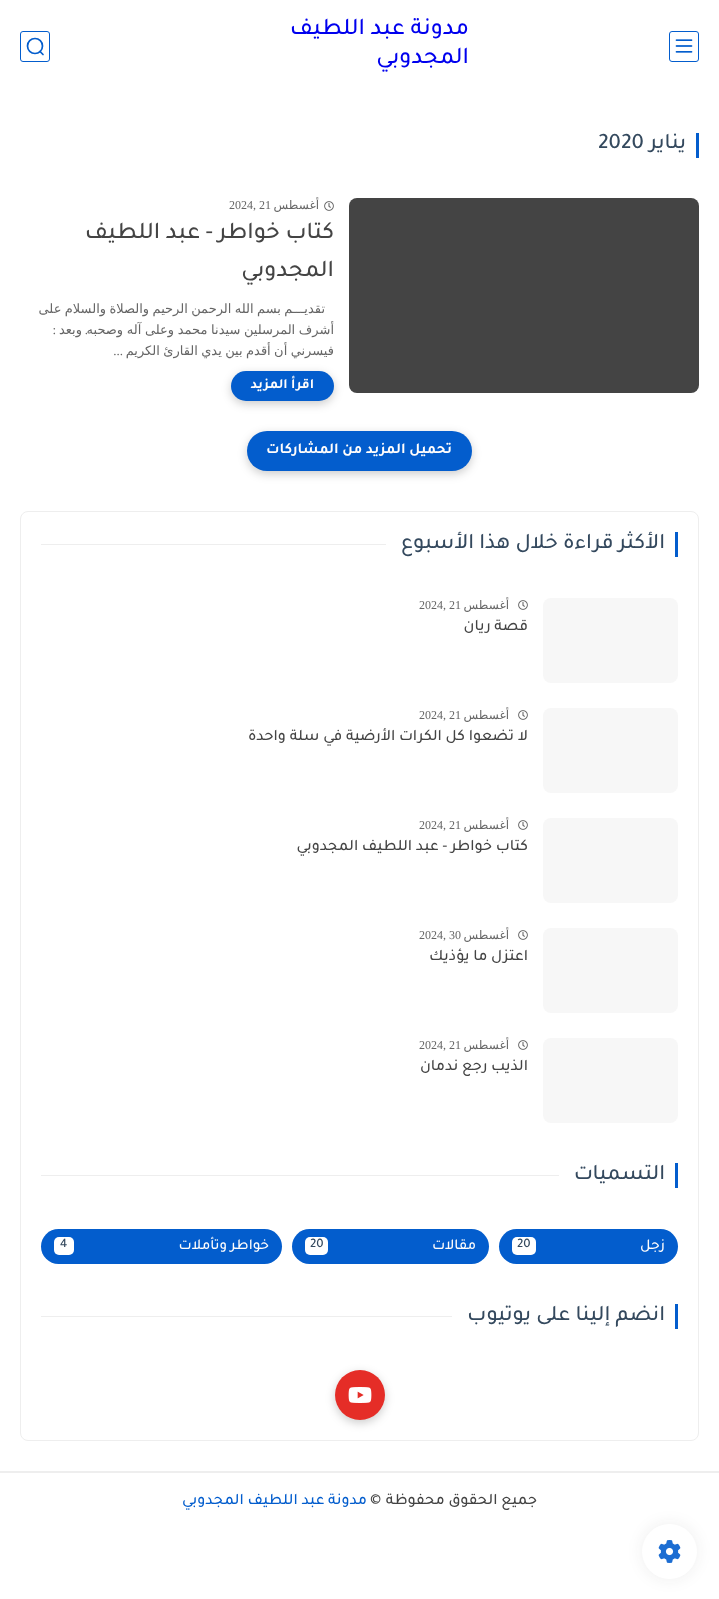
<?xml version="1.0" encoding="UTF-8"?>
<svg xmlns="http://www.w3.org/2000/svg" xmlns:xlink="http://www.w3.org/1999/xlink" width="719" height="1599">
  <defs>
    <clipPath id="clip1"><rect x="20" y="298" width="314" height="63" /></clipPath>
  </defs>
  <rect width="100%" height="100%" fill="#ffffff" />
  <rect x="669.5" y="31.5" width="29" height="30" rx="2.5" fill="none" stroke="#035dcd" />
  <image x="675" y="39" width="18" height="14" xlink:href="image1.png" />
  <rect x="20.5" y="31.5" width="29" height="30" rx="2.5" fill="none" stroke="#035dcd" />
  <circle cx="35" cy="46" r="7.5" fill="none" stroke="#035dcd" stroke-width="1.7" />
  <path d="M 40 51.5 l 3 3" fill="none" stroke="#035dcd" stroke-width="1.7" stroke-linecap="round" stroke-linejoin="round" />
  <rect x="696" y="133" width="3" height="25" fill="#035dcd" />
  <rect x="349" y="198" width="350" height="195" rx="8" fill="#444444" />
  <image x="324" y="201" width="10" height="10" xlink:href="image2.png" />
  <rect x="231" y="374" width="103" height="30" rx="15" fill="#000000" fill-opacity="0.2" filter="blur(5px)" />
  <rect x="231" y="371" width="103" height="30" rx="15" fill="#035dcd" />
  <rect x="247" y="434" width="225" height="40" rx="20" fill="#000000" fill-opacity="0.2" filter="blur(5px)" />
  <rect x="247" y="431" width="225" height="40" rx="20" fill="#035dcd" />
  <rect x="20.5" y="511.5" width="678" height="929" rx="7.5" fill="none" stroke="#eeeeee" />
  <rect x="675" y="532" width="3" height="25" fill="#035dcd" />
  <rect x="41" y="544" width="345" height="1" fill="#eeeeee" />
  <rect x="543" y="598" width="135" height="85" rx="8" fill="#f7f7f7" />
  <image x="518" y="600" width="10" height="10" xlink:href="image2.png" />
  <rect x="543" y="708" width="135" height="85" rx="8" fill="#f7f7f7" />
  <image x="518" y="710" width="10" height="10" xlink:href="image2.png" />
  <rect x="543" y="818" width="135" height="85" rx="8" fill="#f7f7f7" />
  <image x="518" y="820" width="10" height="10" xlink:href="image2.png" />
  <rect x="543" y="928" width="135" height="85" rx="8" fill="#f7f7f7" />
  <image x="518" y="930" width="10" height="10" xlink:href="image2.png" />
  <rect x="543" y="1038" width="135" height="85" rx="8" fill="#f7f7f7" />
  <image x="518" y="1040" width="10" height="10" xlink:href="image2.png" />
  <rect x="675" y="1163" width="3" height="25" fill="#035dcd" />
  <rect x="41" y="1175" width="518" height="1" fill="#eeeeee" />
  <rect x="499" y="1229" width="179" height="35" rx="17.5" fill="#035dcd" />
  <rect x="512" y="1237" width="24" height="18" rx="5" fill="#ffffff" />
  <rect x="292" y="1229" width="197" height="35" rx="17.5" fill="#035dcd" />
  <rect x="305" y="1237" width="23" height="18" rx="5" fill="#ffffff" />
  <rect x="41" y="1229" width="241" height="35" rx="17.5" fill="#035dcd" />
  <rect x="54" y="1237" width="20" height="18" rx="5" fill="#ffffff" />
  <rect x="675" y="1304" width="3" height="25" fill="#035dcd" />
  <rect x="41" y="1316" width="411" height="1" fill="#eeeeee" />
  <rect x="335" y="1373" width="50" height="50" rx="25" fill="#000000" fill-opacity="0.2" filter="blur(5px)" />
  <circle cx="360" cy="1395" r="25" fill="#e52d27" />
  <image x="348" y="1387" width="24" height="16" xlink:href="image3.png" />
  <rect y="1471" width="719" height="2" fill="#eeeeee" />
  <rect x="642" y="1524" width="55" height="55" rx="27.5" fill="#1a1a1a" fill-opacity="0.08" filter="blur(7.5px)" />
  <circle cx="669.5" cy="1551.5" r="27.5" fill="#ffffff" />
  <image x="658" y="1540" width="23" height="23" xlink:href="image4.png" />
  <text x="469" y="34" style="font-family: Tajawal; font-size: 24px; font-weight: 500; direction: rtl; fill: #0000ee">مدونة عبد اللطيف</text>
  <text x="469" y="63" style="font-family: Tajawal; font-size: 24px; font-weight: 500; direction: rtl; fill: #0000ee">المجدوبي</text>
  <text x="686" y="148" style="font-family: Tajawal; font-size: 22px; font-weight: 500; direction: rtl; fill: #34495e">يناير</text>
  <text x="598" y="148" style="font-family: Tajawal; font-size: 22px; font-weight: 500; fill: #34495e">2020</text>
  <text x="319" y="209" style="font-family: DejaVu Sans; font-size: 12px; direction: rtl; fill: #666666">أغسطس</text>
  <text x="229" y="209" style="font-family: Liberation Serif; font-size: 12px; fill: #666666">2024, 21</text>
  <text x="334" y="238" style="font-family: Tajawal; font-size: 24px; font-weight: 500; direction: rtl; fill: #444444">كتاب خواطر - عبد اللطيف</text>
  <text x="334" y="276" style="font-family: Tajawal; font-size: 24px; font-weight: 500; direction: rtl; fill: #444444">المجدوبي</text>
  <text x="325" y="313" word-spacing="-0.75" style="font-family: DejaVu Sans; font-size: 13px; direction: rtl; fill: #666666">تقديـــم بسم الله الرحمن الرحيم والصلاة والسلام على</text>
  <g clip-path="url(#clip1)">
    <text x="334" y="334" word-spacing="-0.5" style="font-family: DejaVu Sans; font-size: 13px; direction: rtl; fill: #666666">أشرف المرسلين سيدنا محمد وعلى آله وصحبه</text>
  </g>
  <text x="88" y="334" style="font-family: Liberation Serif; font-size: 13px; direction: rtl; fill: #666666">.</text>
  <text x="82" y="334" style="font-family: DejaVu Sans; font-size: 13px; direction: rtl; fill: #666666">وبعد</text>
  <text x="56" y="334" style="font-family: Liberation Serif; font-size: 13px; direction: rtl; fill: #666666">:</text>
  <g clip-path="url(#clip1)">
    <text x="334" y="355" word-spacing="-0.75" style="font-family: DejaVu Sans; font-size: 13px; direction: rtl; fill: #666666">فيسرني أن أقدم بين يدي القارئ الكريم</text>
  </g>
  <text x="123" y="355" style="font-family: Liberation Serif; font-size: 13px; direction: rtl; fill: #666666">...</text>
  <text x="314" y="388" style="font-family: Tajawal; font-size: 14px; font-weight: bold; direction: rtl; fill: #fffdfc">اقرأ المزيد</text>
  <text x="452" y="453" style="font-family: Tajawal; font-size: 15px; font-weight: bold; direction: rtl; fill: #fffdfc">تحميل المزيد من المشاركات</text>
  <text x="665" y="548" style="font-family: Tajawal; font-size: 22px; font-weight: 500; direction: rtl; fill: #34495e">الأكثر قراءة</text>
  <text x="558" y="548" style="font-family: Tajawal; font-size: 22px; font-weight: 500; direction: rtl; fill: #34495e">خلال هذا الأسبوع</text>
  <text x="509" y="609" style="font-family: DejaVu Sans; font-size: 12px; direction: rtl; fill: #666666">أغسطس</text>
  <text x="419" y="609" style="font-family: Liberation Serif; font-size: 12px; fill: #666666">2024, 21</text>
  <text x="528" y="630" style="font-family: Tajawal; font-size: 16px; font-weight: 500; direction: rtl; fill: #444444">قصة ريان</text>
  <text x="509" y="719" style="font-family: DejaVu Sans; font-size: 12px; direction: rtl; fill: #666666">أغسطس</text>
  <text x="419" y="719" style="font-family: Liberation Serif; font-size: 12px; fill: #666666">2024, 21</text>
  <text x="528" y="740" style="font-family: Tajawal; font-size: 16px; font-weight: 500; direction: rtl; fill: #444444">لا تضعوا كل الكرات الأرضية في سلة واحدة</text>
  <text x="509" y="829" style="font-family: DejaVu Sans; font-size: 12px; direction: rtl; fill: #666666">أغسطس</text>
  <text x="419" y="829" style="font-family: Liberation Serif; font-size: 12px; fill: #666666">2024, 21</text>
  <text x="528" y="850" style="font-family: Tajawal; font-size: 16px; font-weight: 500; direction: rtl; fill: #444444">كتاب خواطر - عبد اللطيف المجدوبي</text>
  <text x="509" y="939" style="font-family: DejaVu Sans; font-size: 12px; direction: rtl; fill: #666666">أغسطس</text>
  <text x="419" y="939" style="font-family: Liberation Serif; font-size: 12px; fill: #666666">2024, 30</text>
  <text x="528" y="960" style="font-family: Tajawal; font-size: 16px; font-weight: 500; direction: rtl; fill: #444444">اعتزل ما يؤذيك</text>
  <text x="509" y="1049" style="font-family: DejaVu Sans; font-size: 12px; direction: rtl; fill: #666666">أغسطس</text>
  <text x="419" y="1049" style="font-family: Liberation Serif; font-size: 12px; fill: #666666">2024, 21</text>
  <text x="528" y="1070" style="font-family: Tajawal; font-size: 16px; font-weight: 500; direction: rtl; fill: #444444">الذيب رجع ندمان</text>
  <text x="665" y="1179" style="font-family: Tajawal; font-size: 22px; font-weight: 500; direction: rtl; fill: #34495e">التسميات</text>
  <text x="665" y="1249" style="font-family: Tajawal; font-size: 15px; font-weight: 500; direction: rtl; fill: #fffdfc">زجل</text>
  <text x="517" y="1247" style="font-family: Tajawal; font-size: 13px; font-weight: 500; fill: #34495e">20</text>
  <text x="476" y="1249" style="font-family: Tajawal; font-size: 15px; font-weight: 500; direction: rtl; fill: #fffdfc">مقالات</text>
  <text x="310" y="1247" style="font-family: Tajawal; font-size: 13px; font-weight: 500; fill: #34495e">20</text>
  <text x="269" y="1249" style="font-family: Tajawal; font-size: 15px; font-weight: 500; direction: rtl; fill: #fffdfc">خواطر وتأملات</text>
  <text x="60" y="1247" style="font-family: Tajawal; font-size: 13px; font-weight: 500; fill: #34495e">4</text>
  <text x="665" y="1320" style="font-family: Tajawal; font-size: 22px; font-weight: 500; direction: rtl; fill: #34495e">انضم إلينا على يوتيوب</text>
  <text x="537" y="1504" style="font-family: Tajawal; font-size: 16px; font-weight: 500; direction: rtl; fill: #444444">جميع الحقوق محفوظة</text>
  <text x="370" y="1504" style="font-family: Tajawal; font-size: 16px; font-weight: 500; fill: #444444">©</text>
  <text x="367" y="1504" style="font-family: Tajawal; font-size: 16px; font-weight: 500; direction: rtl; fill: #035dcd">مدونة عبد اللطيف المجدوبي</text>
</svg>
